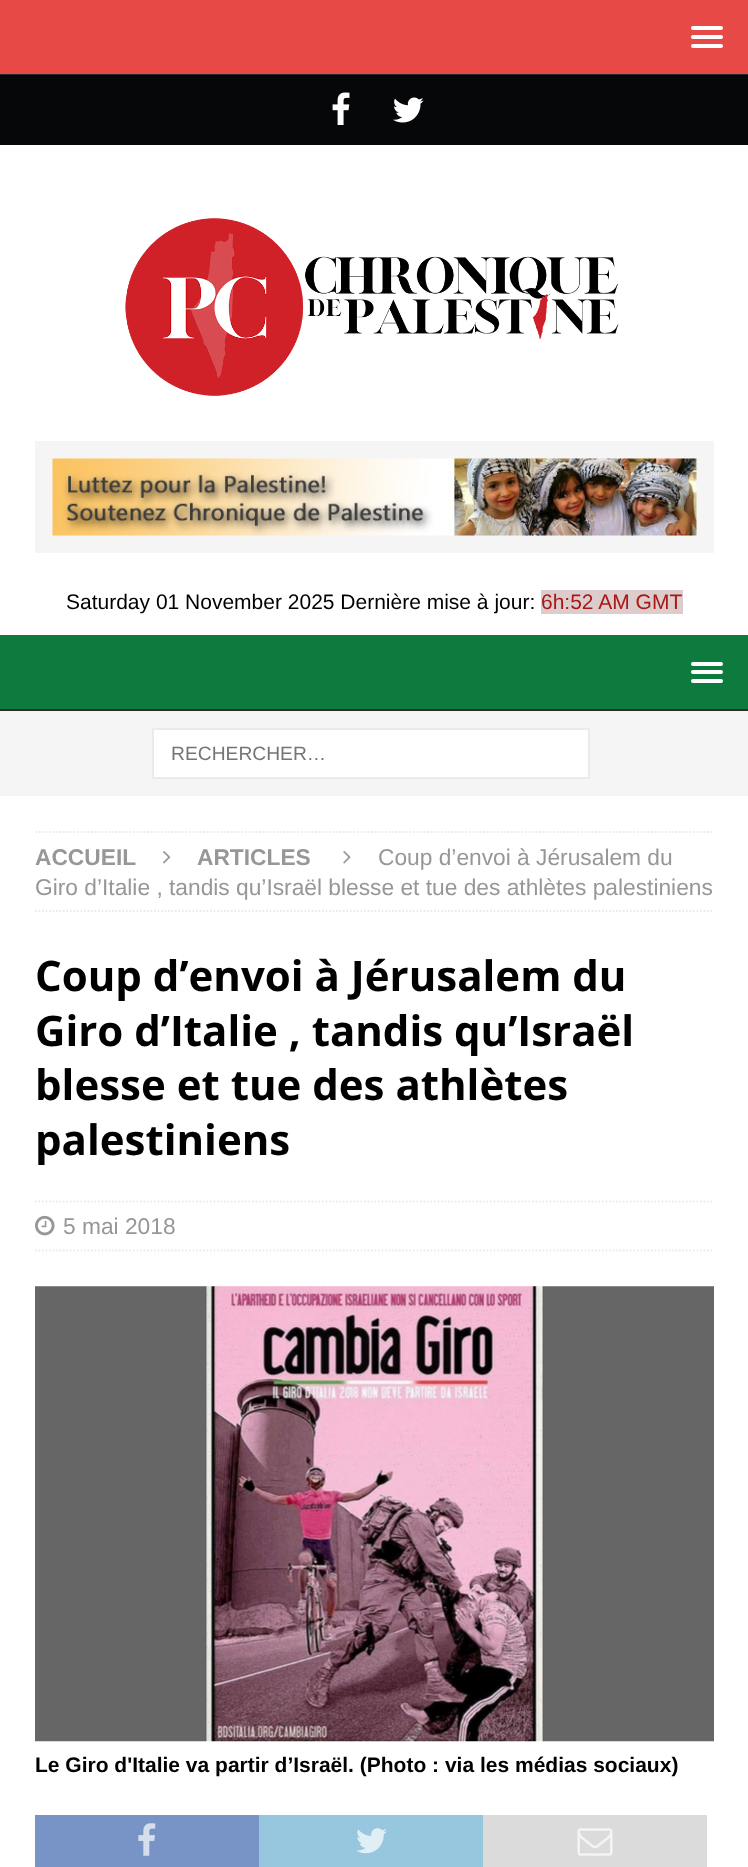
<?xml version="1.0" encoding="UTF-8"?>
<svg xmlns="http://www.w3.org/2000/svg" xmlns:xlink="http://www.w3.org/1999/xlink" width="748" height="1867">
  <rect width="100%" height="100%" fill="#e64946" />
  <rect y="74" width="748" height="1" fill="#2a2a2a" />
  <rect x="691" y="26" width="32" height="4" rx="2" fill="#ffffff" />
  <rect x="691" y="35" width="32" height="4" rx="2" fill="#ffffff" />
  <rect x="691" y="44" width="32" height="4" rx="2" fill="#ffffff" />
  <rect y="75" width="748" height="70" fill="#050708" />
  <image x="332" y="92" width="18" height="33" xlink:href="image1.png" />
  <image x="393" y="97" width="31" height="26" xlink:href="image2.png" />
  <rect y="145" width="748" height="490" fill="#ffffff" />
  <image x="125" y="218" width="494" height="178" xlink:href="image3.png" />
  <rect x="35" y="441" width="679" height="112" fill="#f5f5f5" />
  <image x="52" y="458" width="645" height="78" xlink:href="image4.png" />
  <rect x="541" y="590" width="142" height="24" fill="#dccccc" />
  <rect y="635" width="748" height="74" fill="#0e7b3e" />
  <rect y="709" width="748" height="2" fill="#2a2a2a" />
  <rect x="691" y="662" width="32" height="4" rx="2" fill="#ffffff" />
  <rect x="691" y="670" width="32" height="4" rx="2" fill="#ffffff" />
  <rect x="691" y="679" width="32" height="4" rx="2" fill="#ffffff" />
  <rect y="711" width="748" height="85" fill="#f5f5f5" />
  <rect x="153" y="729" width="436" height="49" fill="#ffffff" stroke="#ebebeb" stroke-width="2" />
  <rect y="796" width="748" height="1071" fill="#ffffff" />
  <path d="M 35 832 h 679" fill="none" stroke="#ebebeb" stroke-width="1.8" stroke-dasharray="1.75 1.75" />
  <path d="M 35 911 h 679" fill="none" stroke="#ebebeb" stroke-width="1.8" stroke-dasharray="1.75 1.75" />
  <image x="163" y="851" width="8" height="13" xlink:href="image5.png" />
  <image x="343" y="850" width="8" height="14" xlink:href="image6.png" />
  <path d="M 35 1201.5 h 679" fill="none" stroke="#ebebeb" stroke-width="1.8" stroke-dasharray="1.75 1.75" />
  <path d="M 35 1250.5 h 679" fill="none" stroke="#ebebeb" stroke-width="1.8" stroke-dasharray="1.75 1.75" />
  <image x="35" y="1215" width="20" height="21" xlink:href="image7.png" />
  <image x="35" y="1286" width="679" height="456" xlink:href="image8.png" />
  <rect x="35" y="1815" width="224" height="52" fill="#7893c6" />
  <image x="138" y="1823" width="18" height="33" xlink:href="image9.png" />
  <rect x="259" y="1815" width="224" height="52" fill="#97c6df" />
  <image x="356" y="1828" width="31" height="26" xlink:href="image10.png" />
  <rect x="483" y="1815" width="224" height="52" fill="#dbdbdb" />
  <image x="577" y="1828" width="36" height="28" xlink:href="image11.png" />
  <text x="66" y="609" style="font-family: Liberation Sans; font-size: 21px; fill: #000000">Saturday 01 November 2025 Dernière mise à jour:</text>
  <text x="541" y="609" style="font-family: Liberation Sans; font-size: 21px; fill: #a81817">6h:52 AM GMT</text>
  <text x="171" y="760" style="font-family: Liberation Sans; font-size: 19.25px; fill: #757575">RECHERCHER…</text>
  <text x="35" y="865" style="font-family: Liberation Sans; font-size: 22.75px; font-weight: bold; fill: #979797">ACCUEIL</text>
  <text x="197" y="865" style="font-family: Liberation Sans; font-size: 22.75px; font-weight: bold; fill: #979797">ARTICLES</text>
  <text x="378" y="865" style="font-family: Liberation Sans; font-size: 22.75px; fill: #979797">Coup d’envoi à Jérusalem du</text>
  <text x="35" y="895" style="font-family: Liberation Sans; font-size: 22.75px; fill: #979797">Giro d’Italie , tandis qu’Israël blesse et tue des athlètes palestiniens</text>
  <text x="35" y="991" style="font-family: Open Sans; font-size: 42px; font-weight: bold; fill: #000000">Coup d’envoi à Jérusalem du</text>
  <text x="35" y="1046" style="font-family: Open Sans; font-size: 42px; font-weight: bold; fill: #000000">Giro d’Italie , tandis qu’Israël</text>
  <text x="35" y="1100" style="font-family: Open Sans; font-size: 42px; font-weight: bold; fill: #000000">blesse et tue des athlètes</text>
  <text x="35" y="1155" style="font-family: Open Sans; font-size: 42px; font-weight: bold; fill: #000000">palestiniens</text>
  <text x="63" y="1234" style="font-family: Liberation Sans; font-size: 22.75px; fill: #979797">5 mai 2018</text>
  <text x="35" y="1772" style="font-family: Liberation Sans; font-size: 21px; font-weight: bold; fill: #000000">Le Giro d'Italie va partir d’Israël. (Photo : via les médias sociaux)</text>
</svg>
